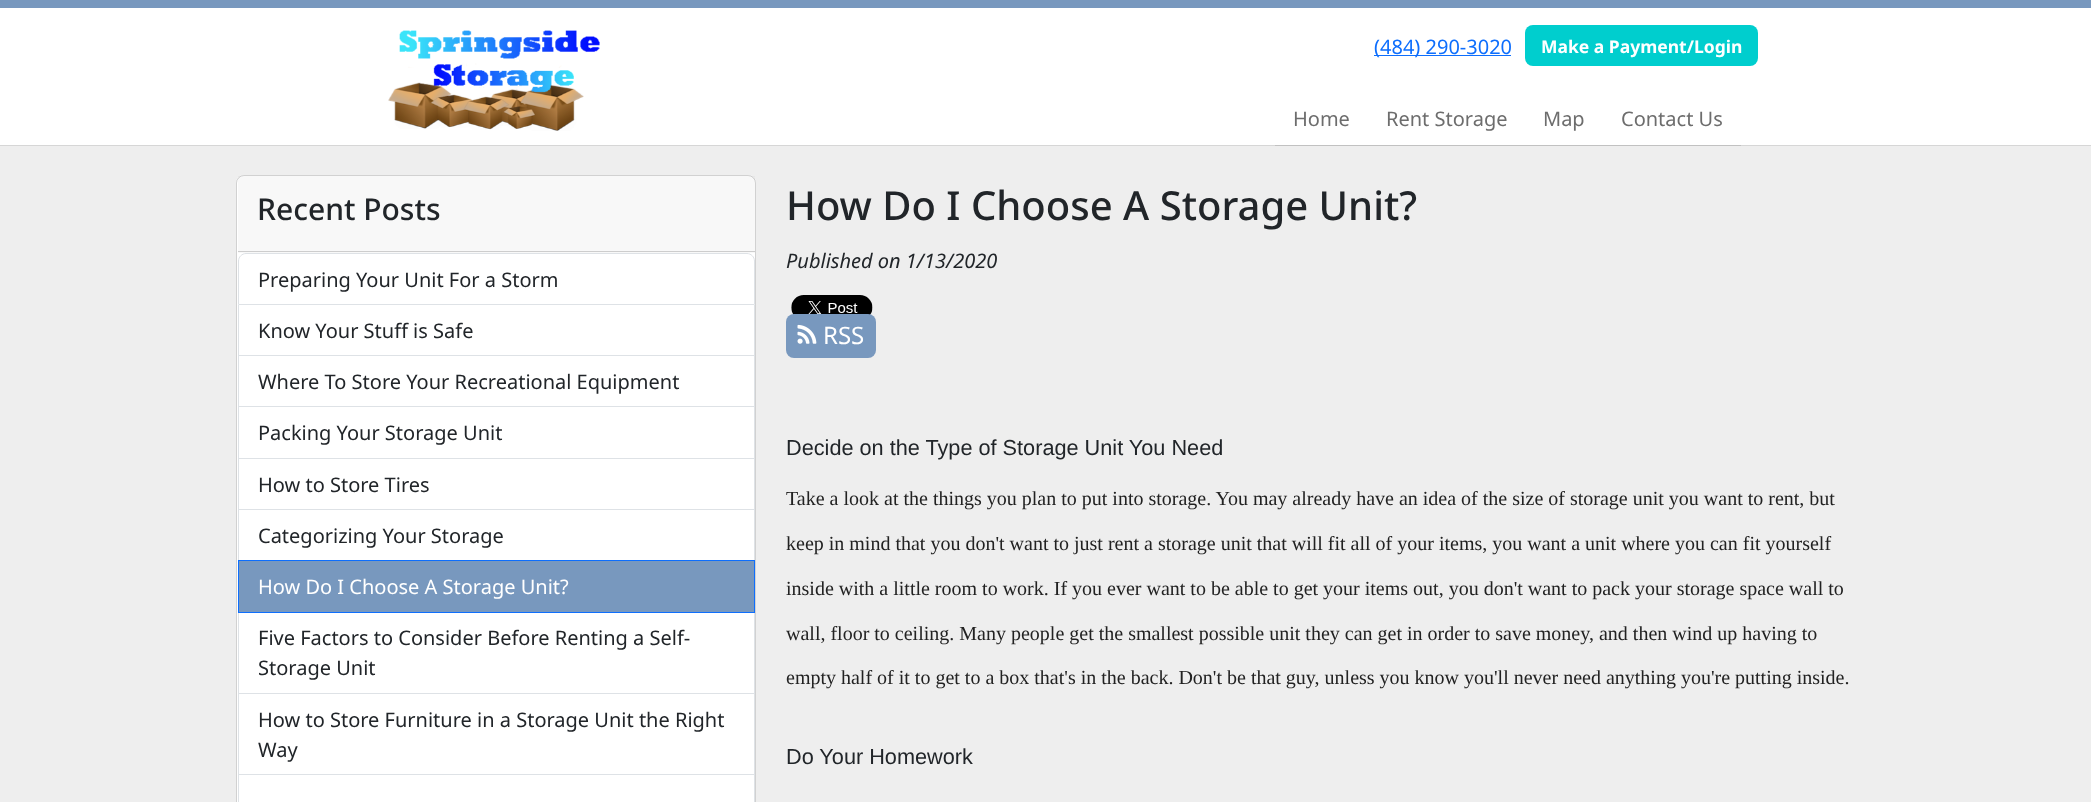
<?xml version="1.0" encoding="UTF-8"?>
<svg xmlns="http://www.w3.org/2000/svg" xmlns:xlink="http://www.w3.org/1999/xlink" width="2091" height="802">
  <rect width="100%" height="100%" fill="#eeeeee" />
  <rect y="145" width="2091" height="1" fill="#d6d6d6" />
  <rect y="8" width="2091" height="137" fill="#ffffff" />
  <rect width="2091" height="8" fill="#7898be" />
  <image x="388" y="30" width="212" height="101" xlink:href="image1.png" />
  <rect x="1374" y="55" width="137" height="1" fill="#0d6efd" />
  <rect x="1525" y="25" width="233" height="41" rx="8" fill="#00cece" />
  <rect x="1275" y="145" width="466" height="1" fill="#c1c1c1" />
  <rect x="236" y="175" width="520" height="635" rx="8" fill="#ffffff" />
  <rect x="236.5" y="175.5" width="519" height="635" rx="7.5" fill="none" stroke="#000000" stroke-opacity="0.18" />
  <rect x="238" y="176" width="517" height="77" fill="#212529" fill-opacity="0.03" />
  <rect x="238" y="251" width="517" height="1" fill="#cdcdcd" />
  <path d="M 246 253.5 h 501 c 4 0 7.5 3.5 7.5 7.5 v 43.5 h -516 v -43.5 c 0 -4 3.5 -7.5 7.5 -7.5 z" fill="none" stroke="#dee2e6" />
  <rect x="754" y="305" width="1" height="256" fill="#dee2e6" />
  <rect x="238" y="355" width="517" height="1" fill="#dee2e6" />
  <rect x="238" y="305" width="1" height="51" fill="#dee2e6" />
  <rect x="238" y="406" width="517" height="1" fill="#dee2e6" />
  <rect x="238" y="356" width="1" height="52" fill="#dee2e6" />
  <rect x="238" y="458" width="517" height="1" fill="#dee2e6" />
  <rect x="238" y="408" width="1" height="51" fill="#dee2e6" />
  <rect x="238" y="509" width="517" height="1" fill="#dee2e6" />
  <rect x="238" y="459" width="1" height="102" fill="#dee2e6" />
  <rect x="238.5" y="560.5" width="516" height="52" fill="#7898be" stroke="#0d6efd" />
  <rect x="754" y="613" width="1" height="162" fill="#dee2e6" />
  <rect x="238" y="693" width="517" height="1" fill="#dee2e6" />
  <rect x="238" y="613" width="1" height="81" fill="#dee2e6" />
  <rect x="238" y="774" width="517" height="1" fill="#dee2e6" />
  <rect x="238" y="694" width="1" height="81" fill="#dee2e6" />
  <path d="M 238 775 h 517 v 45 c 0 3 -3 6 -6 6 h -505 c -4 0 -6 -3 -6 -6 z m 1 0 h 515 v 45 c 0 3 -2 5 -5 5 h -505 c -3 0 -5 -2 -5 -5 z" fill="#dee2e6" fill-rule="evenodd" />
  <image x="791" y="295" width="82" height="20" xlink:href="image2.png" />
  <rect x="786" y="314" width="90" height="44" rx="8" fill="#7898be" />
  <image x="797" y="324" width="20" height="20" xlink:href="image3.png" />
  <text x="1374" y="54" style="font-family: Noto Sans; font-size: 20px; fill: #0d6efd">(484) 290-3020</text>
  <text x="1541" y="53" style="font-family: Noto Sans; font-size: 17.5px; font-weight: bold; fill: #ffffff">Make a Payment/Login</text>
  <text x="1293" y="126" style="font-family: Noto Sans; font-size: 20px; fill: #6d6d6d">Home</text>
  <text x="1386" y="126" style="font-family: Noto Sans; font-size: 20px; fill: #6d6d6d">Rent Storage</text>
  <text x="1543" y="126" style="font-family: Noto Sans; font-size: 20px; fill: #6d6d6d">Map</text>
  <text x="1621" y="126" style="font-family: Noto Sans; font-size: 20px; fill: #6d6d6d">Contact Us</text>
  <text x="257" y="220" style="font-family: Noto Sans; font-size: 30px; font-weight: 500; fill: #212529">Recent Posts</text>
  <text x="258" y="287" style="font-family: Noto Sans; font-size: 20px; fill: #212529">Preparing Your Unit For a Storm</text>
  <text x="258" y="338" style="font-family: Noto Sans; font-size: 20px; fill: #212529">Know Your Stuff is Safe</text>
  <text x="258" y="389" style="font-family: Noto Sans; font-size: 20px; fill: #212529">Where To Store Your Recreational Equipment</text>
  <text x="258" y="440" style="font-family: Noto Sans; font-size: 20px; fill: #212529">Packing Your Storage Unit</text>
  <text x="258" y="492" style="font-family: Noto Sans; font-size: 20px; fill: #212529">How to Store Tires</text>
  <text x="258" y="543" style="font-family: Noto Sans; font-size: 20px; fill: #212529">Categorizing Your Storage</text>
  <text x="258" y="594" style="font-family: Noto Sans; font-size: 20px; fill: #ffffff">How Do I Choose A Storage Unit?</text>
  <text x="258" y="645" style="font-family: Noto Sans; font-size: 20px; fill: #212529">Five Factors to Consider Before Renting a Self-</text>
  <text x="258" y="675" style="font-family: Noto Sans; font-size: 20px; fill: #212529">Storage Unit</text>
  <text x="258" y="727" style="font-family: Noto Sans; font-size: 20px; fill: #212529">How to Store Furniture in a Storage Unit the Right</text>
  <text x="258" y="757" style="font-family: Noto Sans; font-size: 20px; fill: #212529">Way</text>
  <text x="786" y="220" style="font-family: Noto Sans; font-size: 40px; font-weight: 500; fill: #212529">How Do I Choose A Storage Unit?</text>
  <text x="786" y="268" style="font-family: Noto Sans; font-size: 20px; font-style: italic; fill: #212529">Published on 1/13/2020</text>
  <text x="823" y="344" style="font-family: Noto Sans; font-size: 24px; fill: #ffffff">RSS</text>
  <text x="786" y="455" style="font-family: Liberation Sans; font-size: 21.7px; fill: #212529">Decide on the Type of Storage Unit You Need</text>
  <text x="786" y="505" style="font-family: Liberation Serif; font-size: 20px; fill: #222222">Take a look at the things you plan to put into storage. You may already have an idea of the size of storage unit you want to rent, but</text>
  <text x="786" y="550" style="font-family: Liberation Serif; font-size: 20px; fill: #222222">keep in mind that you don't want to just rent a storage unit that will fit all of your items, you want a unit where you can fit yourself</text>
  <text x="786" y="595" style="font-family: Liberation Serif; font-size: 20px; fill: #222222">inside with a little room to work. If you ever want to be able to get your items out, you don't want to pack your storage space wall to</text>
  <text x="786" y="640" style="font-family: Liberation Serif; font-size: 20px; fill: #222222">wall, floor to ceiling. Many people get the smallest possible unit they can get in order to save money, and then wind up having to</text>
  <text x="786" y="684" style="font-family: Liberation Serif; font-size: 20px; fill: #222222">empty half of it to get to a box that's in the back. Don't be that guy, unless you know you'll never need anything you're putting inside.</text>
  <text x="786" y="764" style="font-family: Liberation Sans; font-size: 21.7px; fill: #212529">Do Your Homework</text>
</svg>
